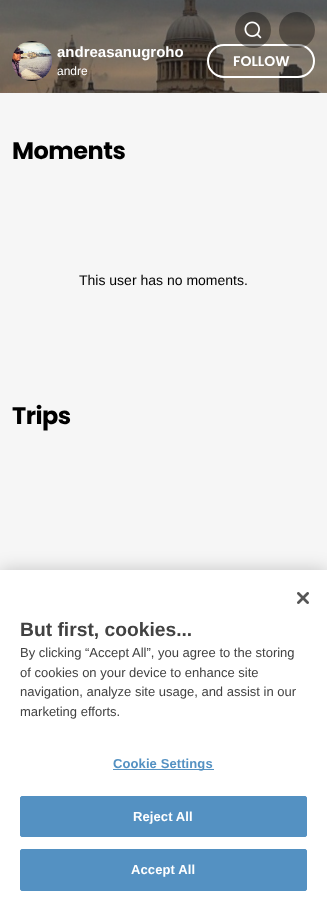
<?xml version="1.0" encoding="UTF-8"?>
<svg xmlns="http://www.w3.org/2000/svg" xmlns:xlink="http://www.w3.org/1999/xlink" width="327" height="903">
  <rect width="100%" height="100%" fill="#f6f6f6" />
  <image x="0" y="0" width="327" height="93" xlink:href="image2.png" />
  <rect x="208" y="45" width="106" height="32" rx="16" fill="none" stroke="#ffffff" stroke-width="2" />
  <circle cx="253" cy="30" r="18" fill="#000000" fill-opacity="0.36" />
  <image x="244" y="21" width="18" height="18" xlink:href="image1.png" />
  <circle cx="297" cy="30" r="18" fill="#000000" fill-opacity="0.36" />
  <circle cx="32" cy="61" r="20" fill="#968d88" />
  <image x="12" y="41" width="40" height="40" xlink:href="image3.png" />
  <rect y="570" width="327" height="333" fill="#000000" fill-opacity="0.2" filter="blur(9px)" />
  <rect y="570" width="327" height="333" fill="#ffffff" />
  <image x="297" y="592" width="12" height="12" xlink:href="image4.png" />
  <rect x="113" y="769" width="101" height="1" fill="#5491c2" />
  <rect x="20.5" y="796.5" width="286" height="40" rx="1.5" fill="#5491c2" stroke="#5491c2" />
  <rect x="20.5" y="849.5" width="286" height="41" rx="1.5" fill="#5491c2" stroke="#5491c2" />
  <text x="57" y="57" style="font-family: Liberation Sans; font-size: 15px; font-weight: bold; fill: #ffffff">andreasanugroho</text>
  <text x="57" y="75" style="font-family: Liberation Sans; font-size: 12px; fill: #ffffff">andre</text>
  <text x="233" y="66" style="font-family: Poppins; font-size: 14px; font-weight: 600; fill: #ffffff">FOLLOW</text>
  <text x="12" y="159" style="font-family: Poppins; font-size: 24px; font-weight: bold; letter-spacing: -0.5px; fill: #000000">Moments</text>
  <text x="79" y="285" style="font-family: Liberation Sans; font-size: 14px; fill: #000000">This user has no moments.</text>
  <text x="12" y="424" style="font-family: Poppins; font-size: 24px; font-weight: bold; letter-spacing: -0.5px; fill: #000000">Trips</text>
  <text x="20" y="636" style="font-family: Liberation Sans; font-size: 19.25px; font-weight: bold; fill: #424242">But first, cookies...</text>
  <text x="20" y="657" style="font-family: Liberation Sans; font-size: 13px; fill: #424242">By clicking “Accept All”, you agree to the storing</text>
  <text x="20" y="677" style="font-family: Liberation Sans; font-size: 13px; fill: #424242">of cookies on your device to enhance site</text>
  <text x="20" y="696" style="font-family: Liberation Sans; font-size: 13px; fill: #424242">navigation, analyze site usage, and assist in our</text>
  <text x="20" y="716" style="font-family: Liberation Sans; font-size: 13px; fill: #424242">marketing efforts.</text>
  <text x="113" y="768" style="font-family: Liberation Sans; font-size: 13px; font-weight: bold; letter-spacing: 0.1px; fill: #5491c2">Cookie Settings</text>
  <text x="133" y="821" style="font-family: Liberation Sans; font-size: 13px; font-weight: bold; letter-spacing: 0.1px; fill: #ffffff">Reject All</text>
  <text x="131" y="874" style="font-family: Liberation Sans; font-size: 13px; font-weight: bold; letter-spacing: 0.1px; fill: #ffffff">Accept All</text>
</svg>
